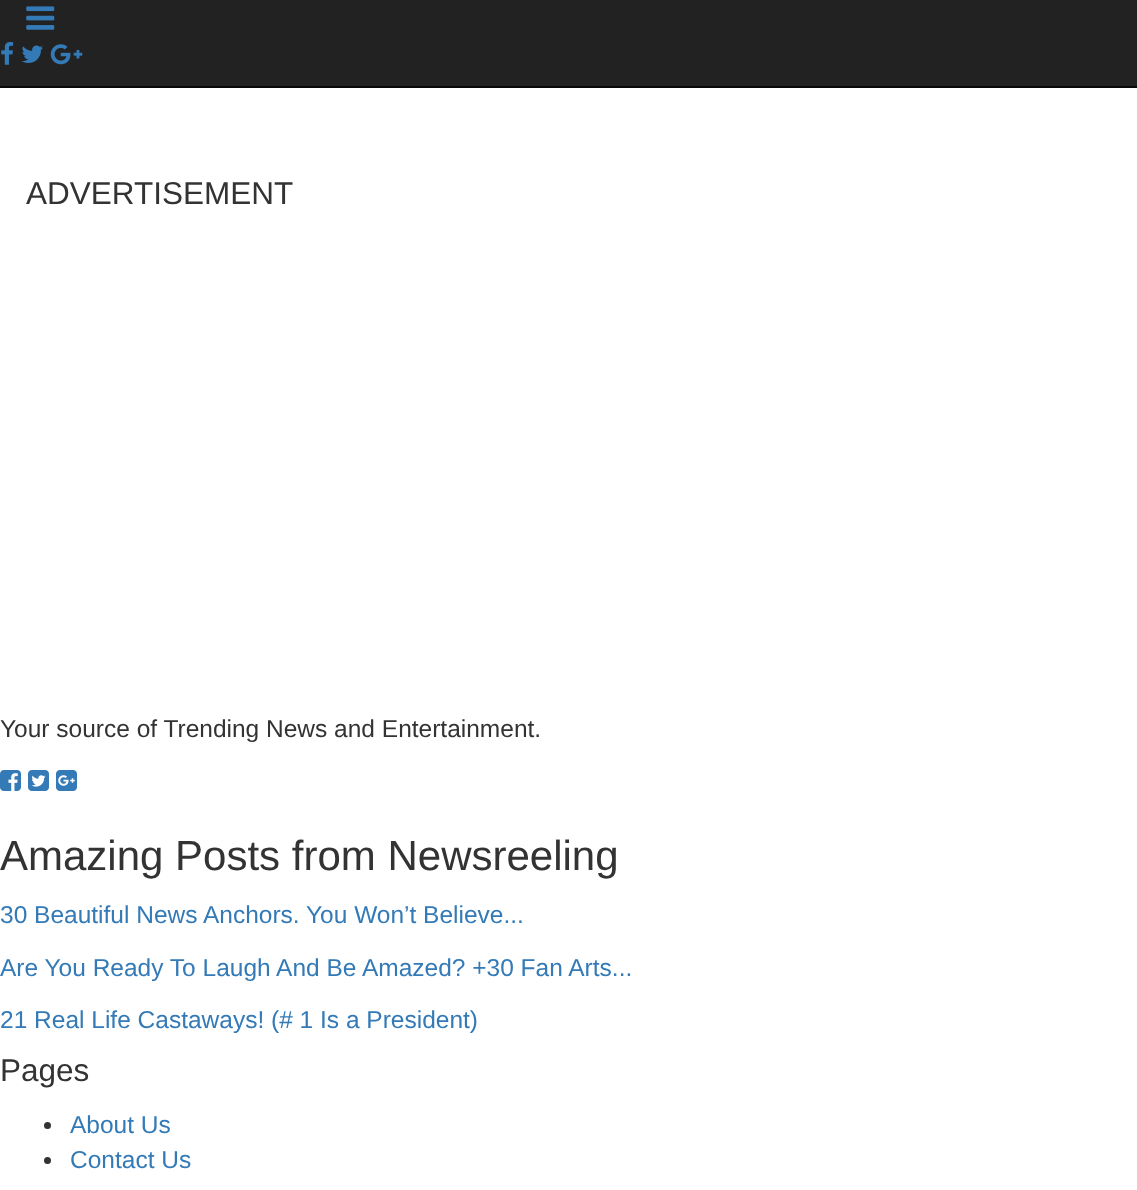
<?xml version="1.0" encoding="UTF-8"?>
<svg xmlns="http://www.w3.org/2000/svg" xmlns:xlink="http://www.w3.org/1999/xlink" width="1137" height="1190">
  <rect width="100%" height="100%" fill="#ffffff" />
  <rect width="1137" height="86" fill="#222222" />
  <rect y="86" width="1137" height="2" fill="#080808" />
  <image x="26" y="6" width="29" height="24" xlink:href="image1.png" />
  <image x="1" y="42" width="13" height="23" xlink:href="image2.png" />
  <image x="21" y="45" width="22" height="18" xlink:href="image3.png" />
  <image x="50" y="44" width="33" height="21" xlink:href="image4.png" />
  <image x="0" y="770" width="21" height="21" xlink:href="image5.png" />
  <image x="28" y="770" width="21" height="21" xlink:href="image6.png" />
  <image x="56" y="770" width="21" height="21" xlink:href="image7.png" />
  <circle cx="47.5" cy="1125.5" r="3.5" fill="#333333" />
  <circle cx="47.5" cy="1160.5" r="3.5" fill="#333333" />
  <text x="26" y="204" style="font-family: Liberation Sans; font-size: 31.5px; fill: #333333">ADVERTISEMENT</text>
  <text x="0" y="737" style="font-family: Liberation Sans; font-size: 24.5px; fill: #333333">Your source of Trending News and Entertainment.</text>
  <text x="0" y="870" style="font-family: Liberation Sans; font-size: 42px; fill: #333333">Amazing Posts from Newsreeling</text>
  <text x="0" y="923" style="font-family: Liberation Sans; font-size: 24.5px; fill: #337ab7">30 Beautiful News Anchors. You Won’t Believe...</text>
  <text x="0" y="976" style="font-family: Liberation Sans; font-size: 24.5px; fill: #337ab7">Are You Ready To Laugh And Be Amazed? +30 Fan Arts...</text>
  <text x="0" y="1028" style="font-family: Liberation Sans; font-size: 24.5px; fill: #337ab7">21 Real Life Castaways! (# 1 Is a President)</text>
  <text x="0" y="1081" style="font-family: Liberation Sans; font-size: 31.5px; fill: #333333">Pages</text>
  <text x="70" y="1133" style="font-family: Liberation Sans; font-size: 24.5px; fill: #337ab7">About Us</text>
  <text x="70" y="1168" style="font-family: Liberation Sans; font-size: 24.5px; fill: #337ab7">Contact Us</text>
</svg>
